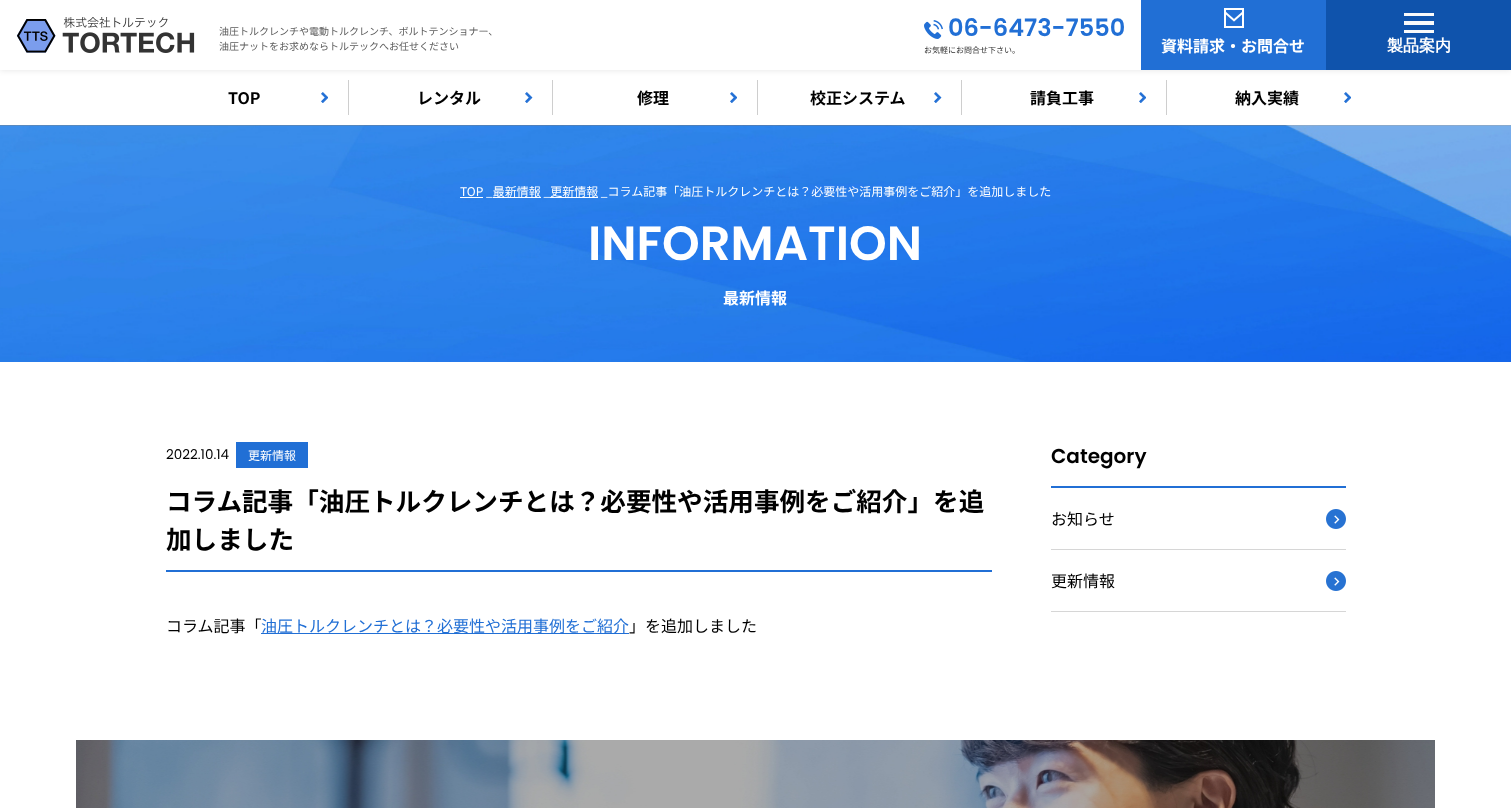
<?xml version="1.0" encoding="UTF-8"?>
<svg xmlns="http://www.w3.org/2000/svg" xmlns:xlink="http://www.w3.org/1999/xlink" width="1511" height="808">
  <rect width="100%" height="100%" fill="#ffffff" />
  <rect width="1511" height="70" fill="#000000" fill-opacity="0.11" filter="blur(3px)" />
  <rect width="1141" height="70" fill="#ffffff" />
  <image x="16" y="17" width="179" height="36" xlink:href="image1.png" />
  <image x="924" y="20" width="19" height="19" xlink:href="image2.png" />
  <rect x="1141" width="185" height="70" fill="#216fd5" />
  <image x="1224" y="8" width="20" height="20" xlink:href="image3.png" />
  <rect x="1326" width="185" height="70" fill="#0f53ac" />
  <rect x="1404" y="30" width="30" height="3" fill="#fafafa" />
  <rect x="1404" y="21" width="30" height="4" fill="#fafafa" />
  <rect x="1404" y="13" width="30" height="3" fill="#fafafa" />
  <image x="321" y="92" width="7" height="11" xlink:href="image4.png" />
  <rect x="348" y="80" width="1" height="35" fill="#cecece" />
  <image x="525" y="92" width="8" height="11" xlink:href="image5.png" />
  <rect x="552" y="80" width="1" height="35" fill="#cecece" />
  <image x="730" y="92" width="7" height="11" xlink:href="image4.png" />
  <rect x="757" y="80" width="1" height="35" fill="#cecece" />
  <image x="934" y="92" width="8" height="11" xlink:href="image5.png" />
  <rect x="961" y="80" width="1" height="35" fill="#cecece" />
  <image x="1139" y="92" width="7" height="11" xlink:href="image4.png" />
  <rect x="1166" y="80" width="1" height="35" fill="#cecece" />
  <image x="1344" y="92" width="7" height="11" xlink:href="image4.png" />
  <image x="0" y="125" width="1511" height="237" xlink:href="image6.png" />
  <rect x="460" y="197" width="23" height="1" fill="#ffffff" />
  <rect x="493" y="197" width="48" height="1" fill="#ffffff" />
  <rect x="550" y="197" width="48" height="1" fill="#ffffff" />
  <rect x="236" y="442" width="72" height="26" fill="#216fd5" />
  <rect x="166" y="570" width="826" height="2" fill="#216fd5" />
  <rect x="261" y="633" width="368" height="1" fill="#216fd5" />
  <rect x="1051" y="486" width="295" height="2" fill="#216fd5" />
  <rect x="1051" y="549" width="295" height="1" fill="#d6d6d6" />
  <image x="1326" y="509" width="20" height="20" xlink:href="image7.png" />
  <rect x="1051" y="611" width="295" height="1" fill="#d6d6d6" />
  <image x="1326" y="571" width="20" height="20" xlink:href="image7.png" />
  <image x="76" y="740" width="1359" height="68" xlink:href="image8.png" />
  <text x="219" y="35" style="font-family: Noto Sans JP; font-size: 10px; fill: #5c5c5c">油圧トルクレンチや電動トルクレンチ、ボルトテンショナー、</text>
  <text x="219" y="50" style="font-family: Noto Sans JP; font-size: 10px; fill: #5c5c5c">油圧ナットをお求めならトルテックへお任せください</text>
  <text x="948" y="36" style="font-family: Poppins; font-size: 24px; font-weight: 600; fill: #216fd5">06-6473-7550</text>
  <text x="924" y="53" style="font-family: Noto Sans JP; font-size: 8px; fill: #333333">お気軽にお問合せ下さい。</text>
  <text x="1161" y="52" style="font-family: Noto Sans JP; font-size: 16px; font-weight: bold; fill: #ffffff">資料請求・お問合せ</text>
  <text x="1387" y="51" style="font-family: WenQuanYi Zen Hei; font-size: 16px; font-weight: bold; fill: #ffffff">製品案内</text>
  <text x="228" y="104" style="font-family: Noto Sans JP; font-size: 16px; font-weight: bold; fill: #000000">TOP</text>
  <text x="417" y="104" style="font-family: Noto Sans JP; font-size: 16px; font-weight: bold; fill: #000000">レンタル</text>
  <text x="637" y="104" style="font-family: Noto Sans JP; font-size: 16px; font-weight: bold; fill: #000000">修理</text>
  <text x="810" y="104" style="font-family: Noto Sans JP; font-size: 16px; font-weight: bold; fill: #000000">校正システム</text>
  <text x="1030" y="104" style="font-family: Noto Sans JP; font-size: 16px; font-weight: bold; fill: #000000">請負工事</text>
  <text x="1235" y="104" style="font-family: Noto Sans JP; font-size: 16px; font-weight: bold; fill: #000000">納入実績</text>
  <text x="460" y="196" style="font-family: Noto Sans JP; font-size: 12px; fill: #ffffff">TOP _最新情報 _更新情報 _コラム記事「油圧トルクレンチとは？必要性や活用事例をご紹介」を追加しました</text>
  <text x="588" y="260" style="font-family: Poppins; font-size: 48px; font-weight: 600; fill: #ffffff">INFORMATION</text>
  <text x="723" y="304" style="font-family: Noto Sans JP; font-size: 16px; font-weight: bold; fill: #ffffff">最新情報</text>
  <text x="166" y="459" style="font-family: Poppins; font-size: 13.5px; fill: #000000">2022.10.14</text>
  <text x="248" y="460" style="font-family: Noto Sans JP; font-size: 12px; fill: #ffffff">更新情報</text>
  <text x="166" y="511" style="font-family: Noto Sans JP; font-size: 25.6px; font-weight: bold; fill: #000000">コラム記事「油圧トルクレンチとは？必要性や活用事例をご紹介」を追</text>
  <text x="166" y="549" style="font-family: Noto Sans JP; font-size: 25.6px; font-weight: bold; fill: #000000">加しました</text>
  <text x="166" y="632" style="font-family: Noto Sans JP; font-size: 16px; fill: #000000">コラム記事「</text>
  <text x="261" y="632" style="font-family: Noto Sans JP; font-size: 16px; fill: #216fd5">油圧トルクレンチとは？必要性や活用事例をご紹介</text>
  <text x="629" y="632" style="font-family: Noto Sans JP; font-size: 16px; fill: #000000">」を追加しました</text>
  <text x="1051" y="463" style="font-family: Poppins; font-size: 20px; font-weight: 600; fill: #000000">Category</text>
  <text x="1051" y="525" style="font-family: Noto Sans JP; font-size: 16px; fill: #000000">お知らせ</text>
  <text x="1051" y="587" style="font-family: Noto Sans JP; font-size: 16px; fill: #000000">更新情報</text>
</svg>
